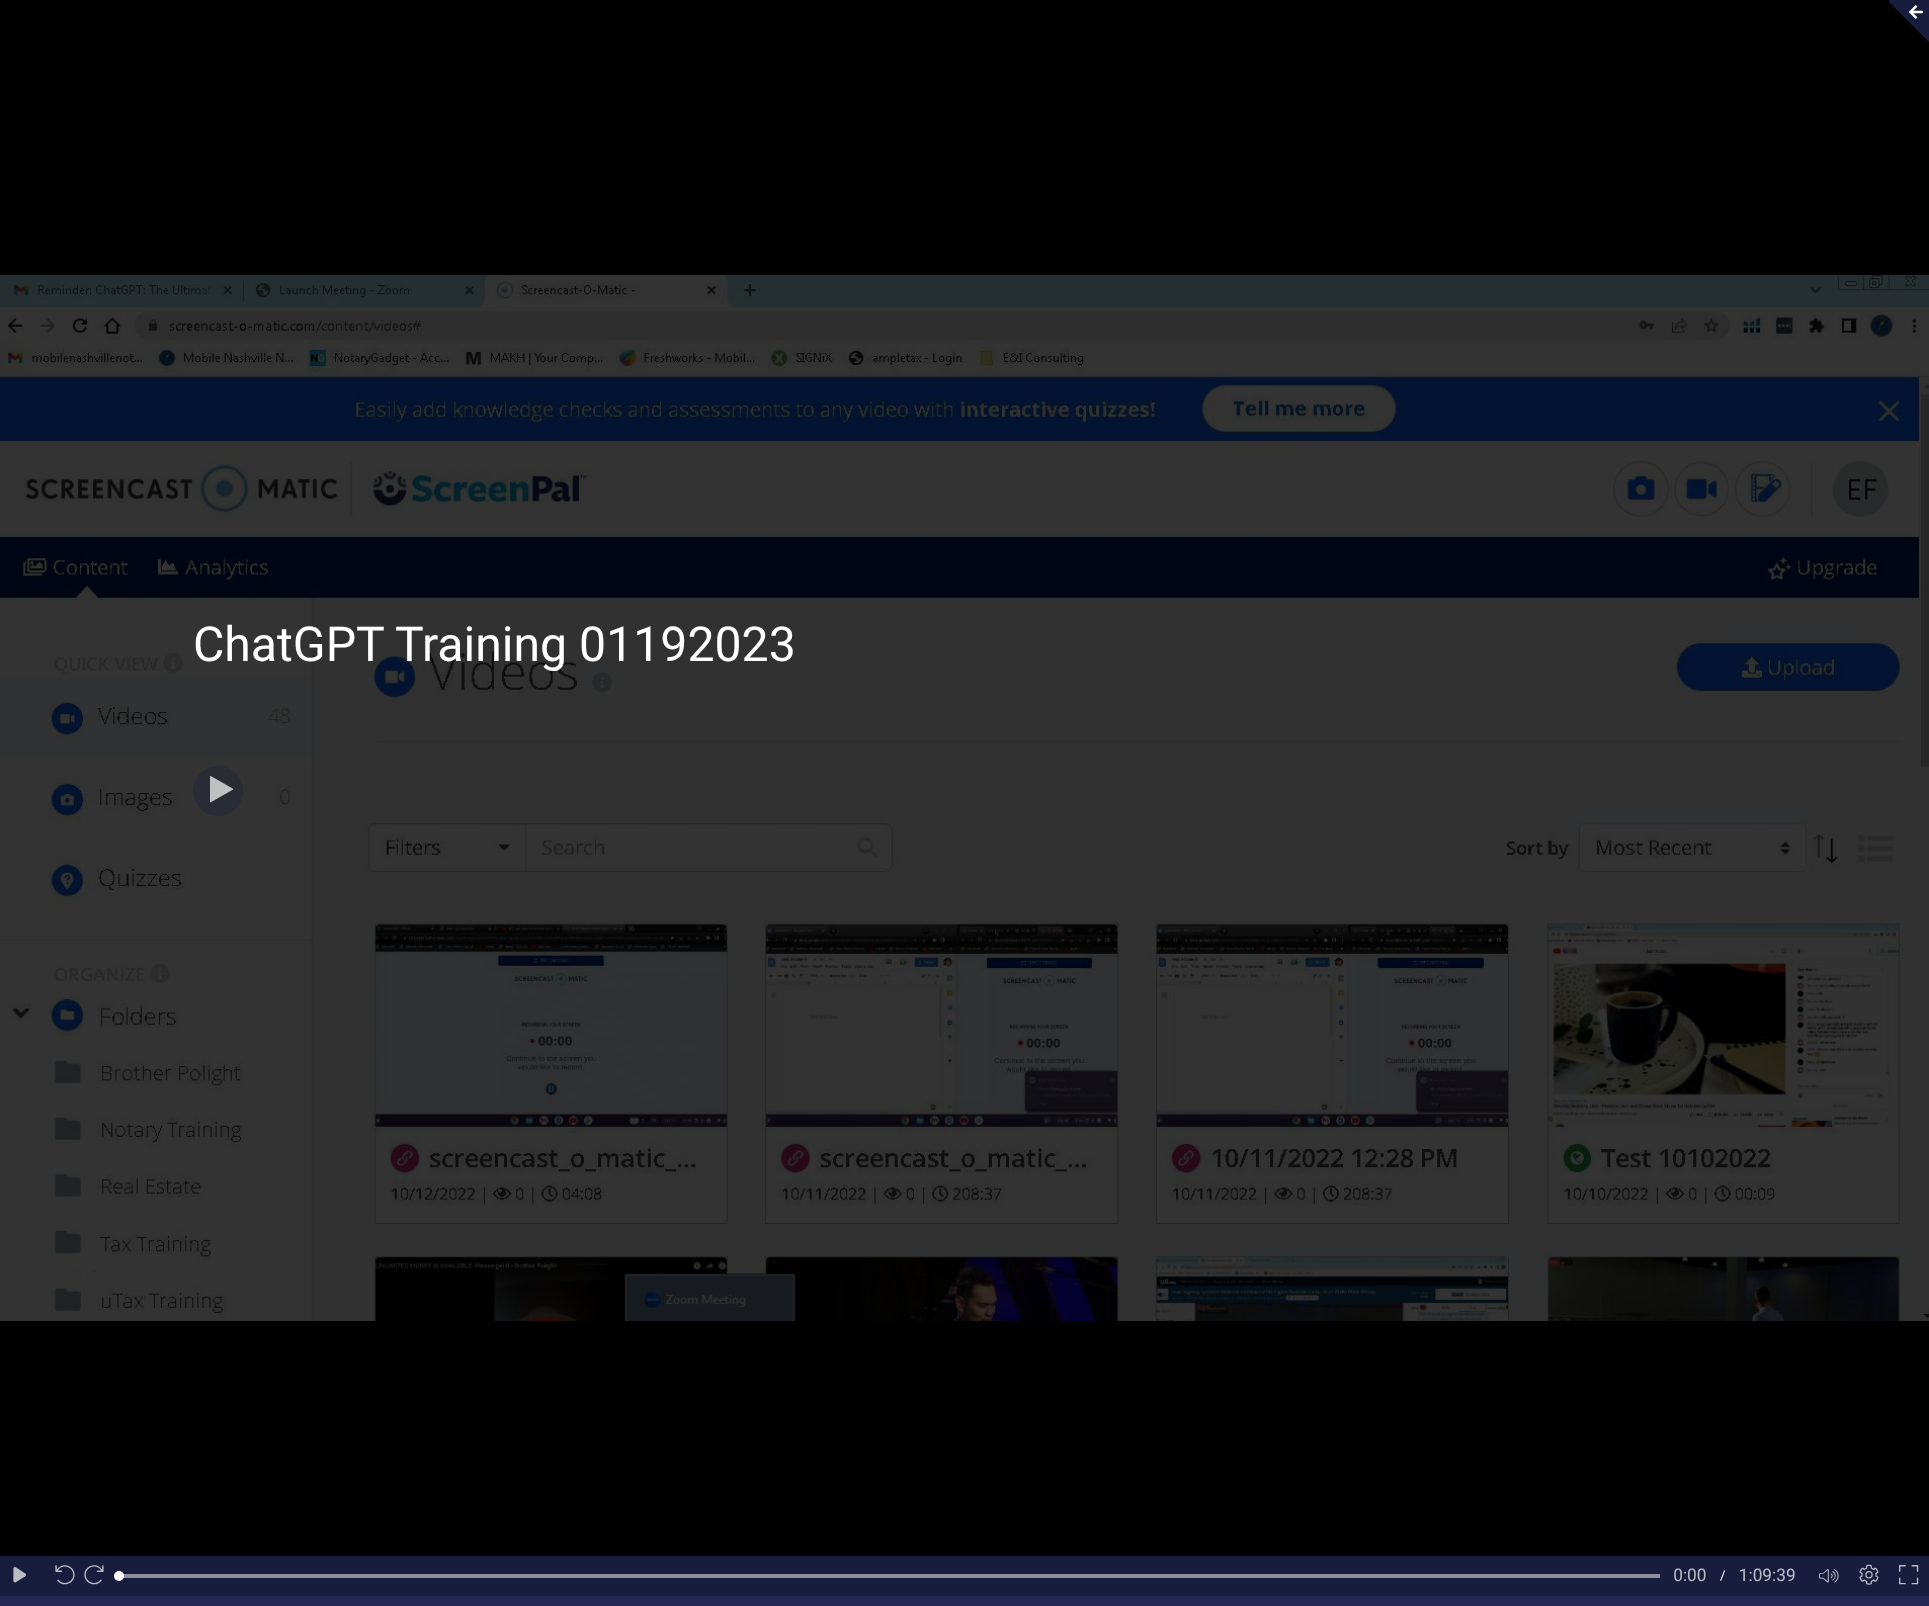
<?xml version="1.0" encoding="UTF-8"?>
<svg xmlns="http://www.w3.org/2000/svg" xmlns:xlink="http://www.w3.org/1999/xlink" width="1929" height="1606">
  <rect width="100%" height="100%" fill="#232953" />
  <image x="0" y="0" width="1929" height="1596" xlink:href="image1.png" />
  <path d="M 1929 0 v 42 l -40 -40 v -2 z" fill="#181d3d" />
  <image x="1909" y="5" width="14" height="14" xlink:href="image2.png" />
</svg>
